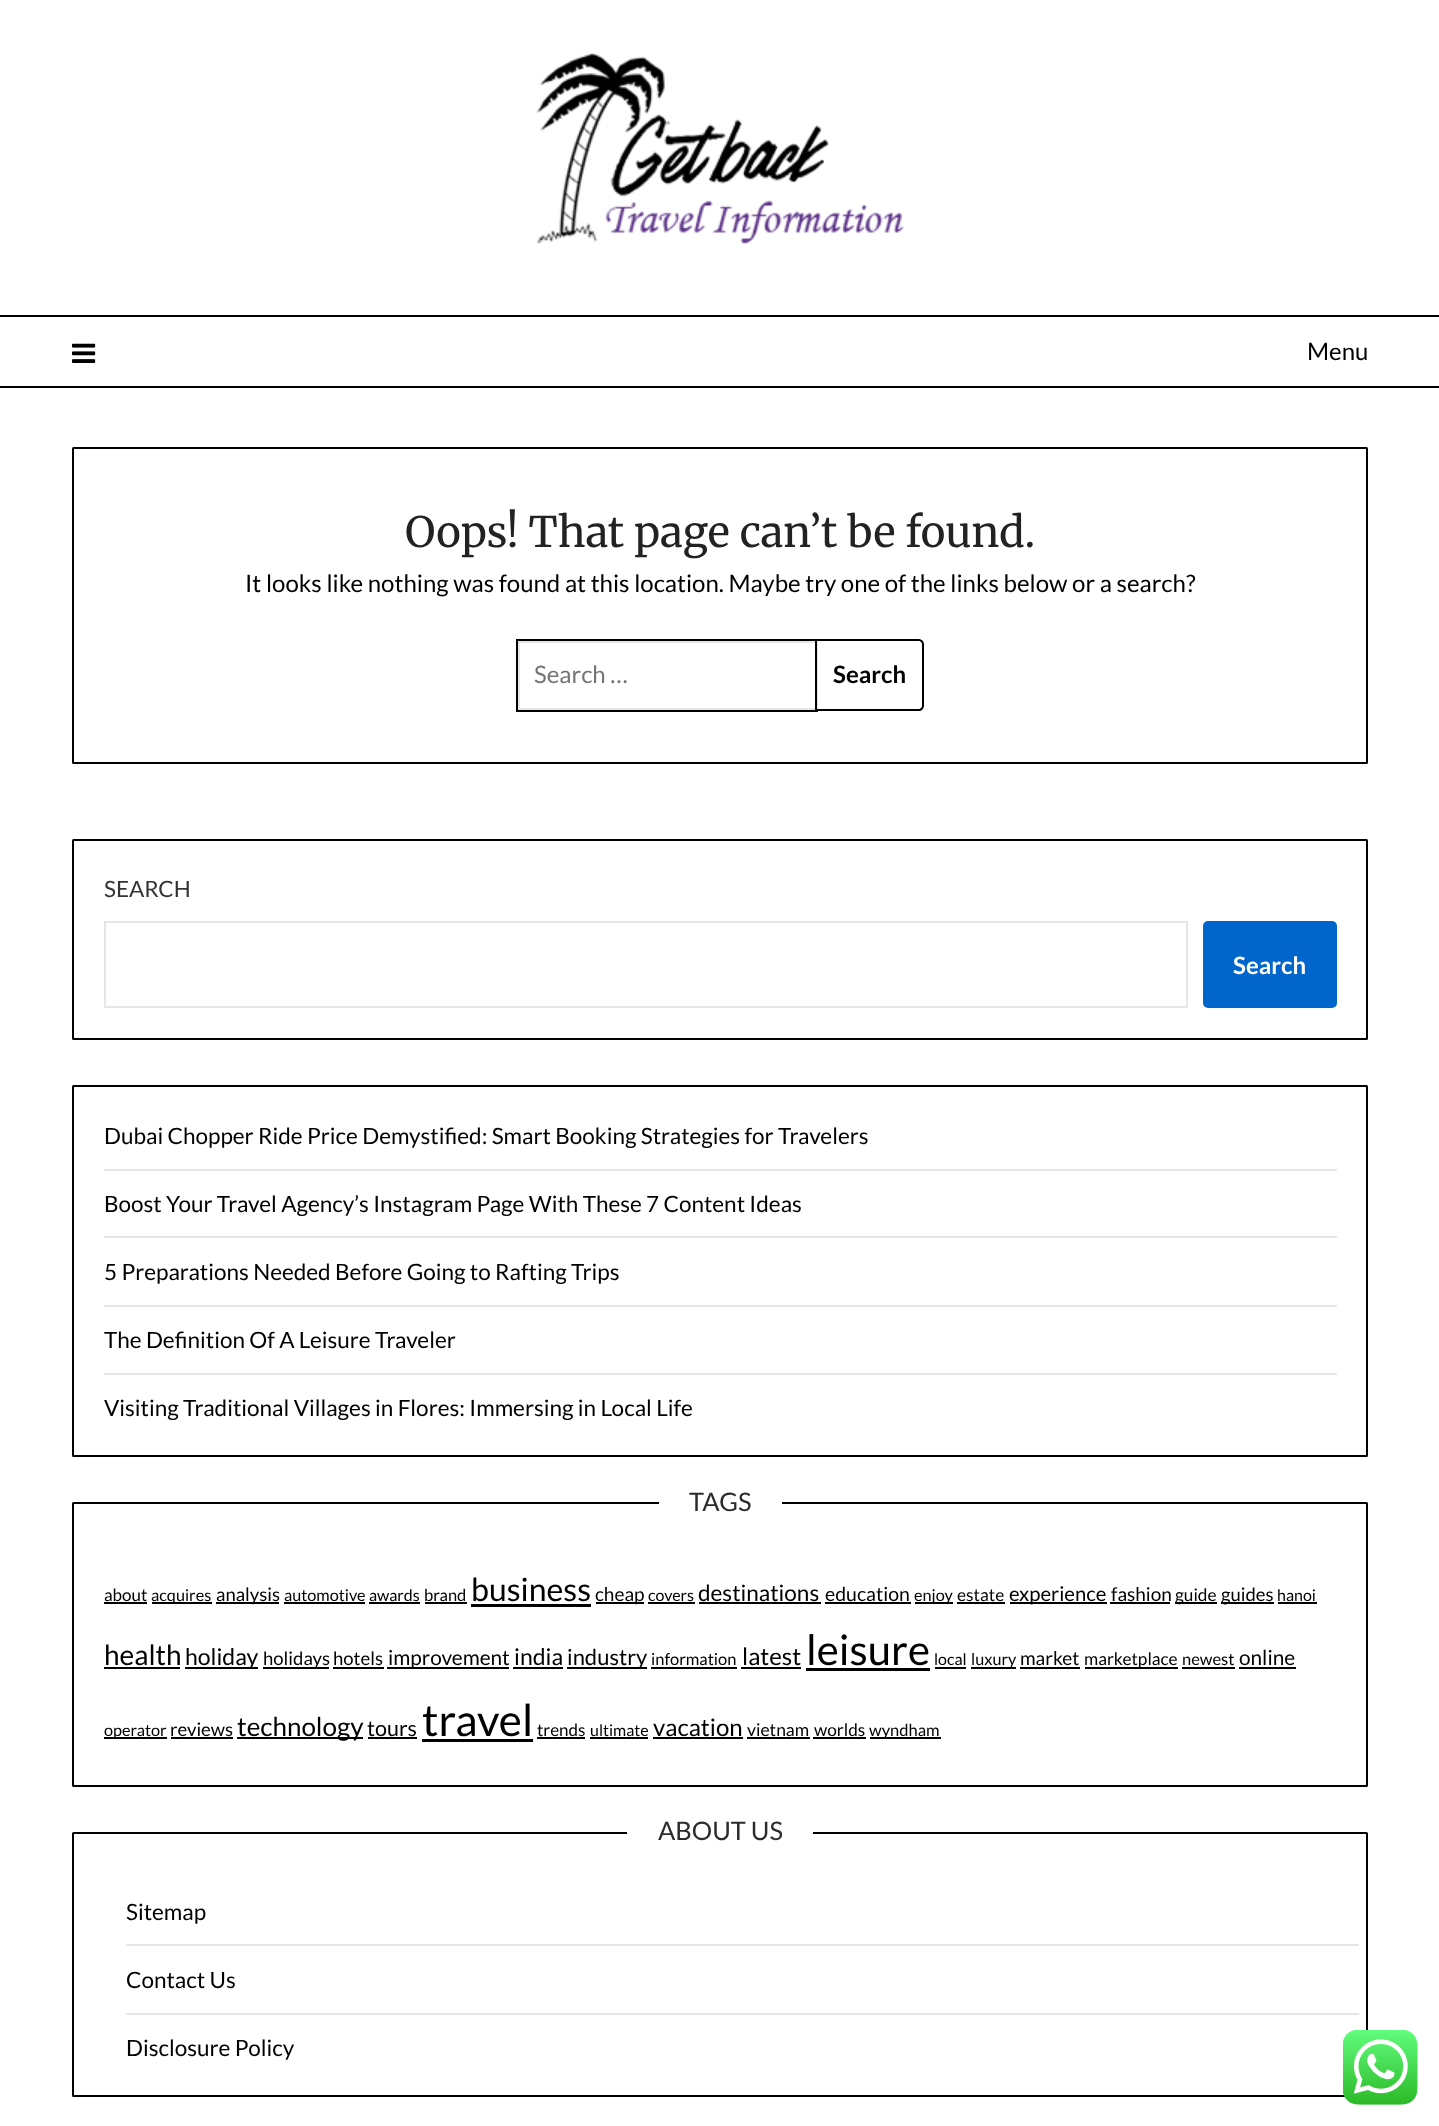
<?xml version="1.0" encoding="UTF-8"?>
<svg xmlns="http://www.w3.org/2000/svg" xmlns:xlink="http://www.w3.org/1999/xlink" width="1439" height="2126">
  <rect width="100%" height="100%" fill="#ffffff" />
  <image x="536" y="53" width="368" height="191" xlink:href="image1.png" />
  <rect y="315" width="1439" height="2" fill="#000000" />
  <rect y="386" width="1439" height="2" fill="#000000" />
  <image x="72" y="343" width="24" height="20" xlink:href="image2.png" />
  <rect x="73" y="448" width="1294" height="315" rx="0.5" fill="none" stroke="#000000" stroke-width="2" />
  <rect x="516" y="639" width="302" height="2" fill="#000000" />
  <rect x="516" y="710" width="302" height="2" fill="#000000" />
  <rect x="516" y="639" width="2" height="72" fill="#000000" />
  <rect x="519" y="642" width="298" height="67" fill="none" stroke="#e5e6e9" stroke-width="2" />
  <path d="M 816 640 h 103 c 2 0 4 2 4 4 v 62 c 0 2 -2 4 -4 4 h -103 z" fill="none" stroke="#000000" stroke-width="2" />
  <rect x="73" y="840" width="1294" height="199" rx="0.5" fill="none" stroke="#000000" stroke-width="2" />
  <rect x="105" y="922" width="1082" height="85" fill="none" stroke="#e5e6e9" stroke-width="2" />
  <rect x="1203" y="921" width="134" height="87" rx="5" fill="#0066cc" />
  <rect x="73" y="1086" width="1294" height="370" rx="0.5" fill="none" stroke="#000000" stroke-width="2" />
  <rect x="104" y="1169" width="1233" height="2" fill="#e6e6e6" />
  <rect x="104" y="1236" width="1233" height="2" fill="#e6e6e6" />
  <rect x="104" y="1305" width="1233" height="2" fill="#e6e6e6" />
  <rect x="104" y="1373" width="1233" height="2" fill="#e6e6e6" />
  <rect x="73" y="1503" width="1294" height="283" rx="0.5" fill="none" stroke="#000000" stroke-width="2" />
  <rect x="659" y="1502" width="123" height="2" fill="#ffffff" />
  <rect x="104" y="1602" width="43" height="2" fill="#000000" />
  <rect x="152" y="1602" width="60" height="2" fill="#000000" />
  <rect x="216" y="1602" width="63" height="2" fill="#000000" />
  <rect x="284" y="1602" width="81" height="2" fill="#000000" />
  <rect x="369" y="1602" width="51" height="2" fill="#000000" />
  <rect x="425" y="1602" width="42" height="2" fill="#000000" />
  <rect x="471" y="1604" width="120" height="3" fill="#000000" />
  <rect x="596" y="1602" width="48" height="2" fill="#000000" />
  <rect x="648" y="1602" width="47" height="2" fill="#000000" />
  <rect x="699" y="1602" width="122" height="2" fill="#000000" />
  <rect x="825" y="1602" width="86" height="2" fill="#000000" />
  <rect x="915" y="1602" width="38" height="2" fill="#000000" />
  <rect x="957" y="1602" width="48" height="2" fill="#000000" />
  <rect x="1010" y="1602" width="97" height="2" fill="#000000" />
  <rect x="1110" y="1602" width="60" height="2" fill="#000000" />
  <rect x="1175" y="1602" width="42" height="2" fill="#000000" />
  <rect x="1221" y="1602" width="53" height="2" fill="#000000" />
  <rect x="1278" y="1602" width="39" height="2" fill="#000000" />
  <rect x="104" y="1667" width="76" height="2" fill="#000000" />
  <rect x="185" y="1667" width="73" height="2" fill="#000000" />
  <rect x="263" y="1667" width="66" height="2" fill="#000000" />
  <rect x="333" y="1667" width="51" height="2" fill="#000000" />
  <rect x="387" y="1667" width="122" height="2" fill="#000000" />
  <rect x="513" y="1667" width="50" height="2" fill="#000000" />
  <rect x="567" y="1667" width="80" height="2" fill="#000000" />
  <rect x="651" y="1667" width="86" height="2" fill="#000000" />
  <rect x="741" y="1667" width="60" height="2" fill="#000000" />
  <rect x="806" y="1668" width="124" height="3" fill="#000000" />
  <rect x="935" y="1667" width="31" height="2" fill="#000000" />
  <rect x="971" y="1667" width="45" height="2" fill="#000000" />
  <rect x="1020" y="1667" width="60" height="2" fill="#000000" />
  <rect x="1085" y="1667" width="93" height="2" fill="#000000" />
  <rect x="1182" y="1667" width="53" height="2" fill="#000000" />
  <rect x="1239" y="1667" width="57" height="2" fill="#000000" />
  <rect x="104" y="1737" width="63" height="2" fill="#000000" />
  <rect x="171" y="1737" width="62" height="2" fill="#000000" />
  <rect x="237" y="1737" width="126" height="2" fill="#000000" />
  <rect x="368" y="1737" width="49" height="2" fill="#000000" />
  <rect x="422" y="1739" width="111" height="3" fill="#000000" />
  <rect x="537" y="1737" width="48" height="2" fill="#000000" />
  <rect x="590" y="1737" width="58" height="2" fill="#000000" />
  <rect x="653" y="1737" width="90" height="2" fill="#000000" />
  <rect x="747" y="1737" width="63" height="2" fill="#000000" />
  <rect x="813" y="1737" width="53" height="2" fill="#000000" />
  <rect x="870" y="1737" width="71" height="2" fill="#000000" />
  <rect x="73" y="1833" width="1294" height="263" rx="0.5" fill="none" stroke="#000000" stroke-width="2" />
  <rect x="627" y="1832" width="186" height="2" fill="#ffffff" />
  <rect x="126" y="1944" width="1233" height="2" fill="#e6e6e6" />
  <rect x="126" y="2013" width="1233" height="2" fill="#e6e6e6" />
  <image x="1343" y="2030" width="75" height="75" xlink:href="image3.png" />
  <text x="1307" y="360" style="font-family: Lato; font-size: 24px; fill: #000000">Menu</text>
  <text x="405" y="547" style="font-family: Merriweather; font-size: 42px; font-weight: 300; fill: #222222">Oops! That page can’t be found.</text>
  <text x="245" y="592" style="font-family: Lato; font-size: 24px; fill: #000000">It looks like nothing was found at this location. Maybe try one of the links below or a search?</text>
  <text x="534" y="683" style="font-family: Lato; font-size: 24px; fill: #757575">Search …</text>
  <text x="833" y="683" style="font-family: Lato; font-size: 24px; font-weight: bold; fill: #000000">Search</text>
  <text x="104" y="897" style="font-family: Lato; font-size: 22.5px; fill: #333333">SEARCH</text>
  <text x="1233" y="974" style="font-family: Lato; font-size: 24px; font-weight: bold; fill: #ffffff">Search</text>
  <text x="104" y="1144" style="font-family: Lato; font-size: 22.5px; fill: #000000">Dubai Chopper Ride Price Demystified: Smart Booking Strategies for Travelers</text>
  <text x="104" y="1212" style="font-family: Lato; font-size: 22.5px; fill: #000000">Boost Your Travel Agency’s Instagram Page With These 7 Content Ideas</text>
  <text x="104" y="1280" style="font-family: Lato; font-size: 22.5px; fill: #000000">5 Preparations Needed Before Going to Rafting Trips</text>
  <text x="104" y="1348" style="font-family: Lato; font-size: 22.5px; fill: #000000">The Definition Of A Leisure Traveler</text>
  <text x="104" y="1416" style="font-family: Lato; font-size: 22.5px; fill: #000000">Visiting Traditional Villages in Flores: Immersing in Local Life</text>
  <text x="689" y="1511" style="font-family: Lato; font-size: 25.5px; fill: #2b2b2b">TAGS</text>
  <text x="104" y="1601" style="font-family: Lato; font-size: 17px; fill: #000000">about</text>
  <text x="151" y="1601" style="font-family: Lato; font-size: 16.25px; fill: #000000">acquires</text>
  <text x="216" y="1601" style="font-family: Lato; font-size: 18.5px; fill: #000000">analysis</text>
  <text x="284" y="1601" style="font-family: Lato; font-size: 16.25px; fill: #000000">automotive</text>
  <text x="369" y="1601" style="font-family: Lato; font-size: 16px; fill: #000000">awards</text>
  <text x="424" y="1601" style="font-family: Lato; font-size: 16.5px; fill: #000000">brand</text>
  <text x="471" y="1601" style="font-family: Lato; font-size: 32px; fill: #000000">business</text>
  <text x="595" y="1601" style="font-family: Lato; font-size: 19px; fill: #000000">cheap</text>
  <text x="648" y="1601" style="font-family: Lato; font-size: 16px; fill: #000000">covers</text>
  <text x="698" y="1601" style="font-family: Lato; font-size: 22.5px; fill: #000000">destinations</text>
  <text x="825" y="1601" style="font-family: Lato; font-size: 19.5px; fill: #000000">education</text>
  <text x="914" y="1601" style="font-family: Lato; font-size: 16.25px; fill: #000000">enjoy</text>
  <text x="957" y="1601" style="font-family: Lato; font-size: 17.25px; fill: #000000">estate</text>
  <text x="1009" y="1601" style="font-family: Lato; font-size: 20.25px; fill: #000000">experience</text>
  <text x="1111" y="1601" style="font-family: Lato; font-size: 19px; fill: #000000">fashion</text>
  <text x="1175" y="1601" style="font-family: Lato; font-size: 17.25px; fill: #000000">guide</text>
  <text x="1221" y="1601" style="font-family: Lato; font-size: 18.5px; fill: #000000">guides</text>
  <text x="1277" y="1601" style="font-family: Lato; font-size: 16px; fill: #000000">hanoi</text>
  <text x="104" y="1665" style="font-family: Lato; font-size: 28px; fill: #000000">health</text>
  <text x="185" y="1665" style="font-family: Lato; font-size: 23px; fill: #000000">holiday</text>
  <text x="263" y="1665" style="font-family: Lato; font-size: 18.5px; fill: #000000">holidays</text>
  <text x="333" y="1665" style="font-family: Lato; font-size: 18.5px; fill: #000000">hotels</text>
  <text x="388" y="1665" style="font-family: Lato; font-size: 20.75px; fill: #000000">improvement</text>
  <text x="514" y="1665" style="font-family: Lato; font-size: 23px; fill: #000000">india</text>
  <text x="567" y="1665" style="font-family: Lato; font-size: 22px; fill: #000000">industry</text>
  <text x="651" y="1665" style="font-family: Lato; font-size: 16.5px; fill: #000000">information</text>
  <text x="742" y="1665" style="font-family: Lato; font-size: 24px; fill: #000000">latest</text>
  <text x="806" y="1665" style="font-family: Lato; font-size: 42px; fill: #000000">leisure</text>
  <text x="934" y="1665" style="font-family: Lato; font-size: 16px; fill: #000000">local</text>
  <text x="971" y="1665" style="font-family: Lato; font-size: 16.25px; fill: #000000">luxury</text>
  <text x="1020" y="1665" style="font-family: Lato; font-size: 19px; fill: #000000">market</text>
  <text x="1084" y="1665" style="font-family: Lato; font-size: 17.25px; fill: #000000">marketplace</text>
  <text x="1182" y="1665" style="font-family: Lato; font-size: 16.5px; fill: #000000">newest</text>
  <text x="1239" y="1665" style="font-family: Lato; font-size: 20.75px; fill: #000000">online</text>
  <text x="104" y="1736" style="font-family: Lato; font-size: 16.25px; fill: #000000">operator</text>
  <text x="170" y="1736" style="font-family: Lato; font-size: 18.5px; fill: #000000">reviews</text>
  <text x="237" y="1736" style="font-family: Lato; font-size: 26px; fill: #000000">technology</text>
  <text x="367" y="1736" style="font-family: Lato; font-size: 21.5px; fill: #000000">tours</text>
  <text x="422" y="1736" style="font-family: Lato; font-size: 44px; fill: #000000">travel</text>
  <text x="537" y="1736" style="font-family: Lato; font-size: 17px; fill: #000000">trends</text>
  <text x="590" y="1736" style="font-family: Lato; font-size: 16px; fill: #000000">ultimate</text>
  <text x="653" y="1736" style="font-family: Lato; font-size: 24px; fill: #000000">vacation</text>
  <text x="747" y="1736" style="font-family: Lato; font-size: 17.5px; fill: #000000">vietnam</text>
  <text x="814" y="1736" style="font-family: Lato; font-size: 17.25px; fill: #000000">worlds</text>
  <text x="869" y="1736" style="font-family: Lato; font-size: 16.5px; fill: #000000">wyndham</text>
  <text x="658" y="1840" style="font-family: Lato; font-size: 25.5px; fill: #2b2b2b">ABOUT US</text>
  <text x="126" y="1920" style="font-family: Lato; font-size: 22.5px; fill: #000000">Sitemap</text>
  <text x="126" y="1988" style="font-family: Lato; font-size: 22.5px; fill: #000000">Contact Us</text>
  <text x="126" y="2056" style="font-family: Lato; font-size: 22.5px; fill: #000000">Disclosure Policy</text>
</svg>
